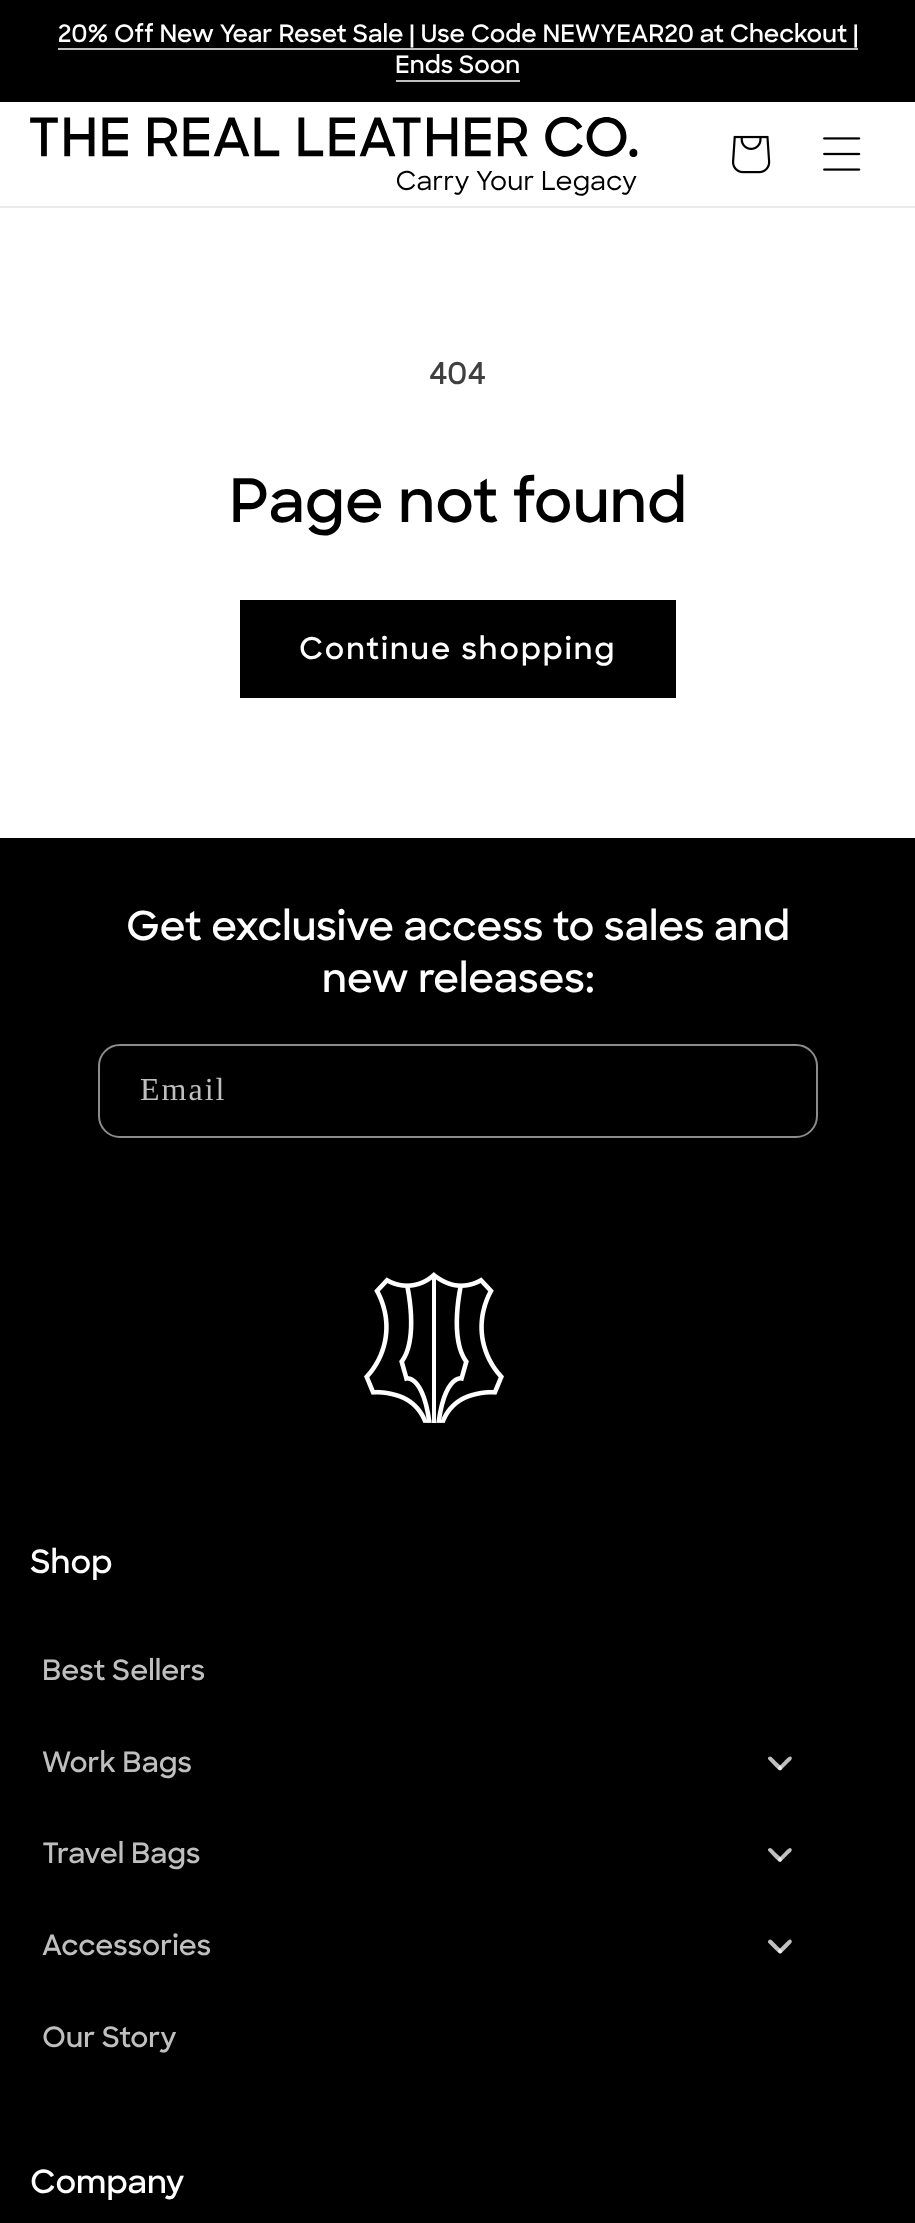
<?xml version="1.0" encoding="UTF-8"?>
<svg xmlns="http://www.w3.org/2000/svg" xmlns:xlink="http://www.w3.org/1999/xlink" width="915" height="2223">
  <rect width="100%" height="100%" fill="#ffffff" />
  <rect width="915" height="102" fill="#000000" />
  <rect x="58" y="48" width="800" height="2" fill="#bfbfbf" />
  <rect x="396" y="80" width="124" height="2" fill="#bfbfbf" />
  <rect y="206" width="915" height="2" fill="#ebebeb" />
  <image x="30" y="116" width="608" height="80" xlink:href="image1.png" />
  <image x="732" y="135" width="39" height="39" xlink:href="image2.png" />
  <image x="823" y="137" width="38" height="34" xlink:href="image3.png" />
  <rect x="240" y="600" width="436" height="98" fill="#000000" />
  <rect y="838" width="915" height="1385" fill="#000000" />
  <rect x="99" y="1045" width="718" height="92" rx="21" fill="none" stroke="#8c8c8c" stroke-width="2" />
  <image x="364" y="1272" width="140" height="151" xlink:href="image4.png" />
  <path d="M 771.5 1757 l 5 5 c 1 1 6 4.5 5.5 6.5 l -1 1.5 c -2 1.5 -4.5 -2.5 -6 -3.5 l -7 -7.5 c -0.5 -2 2 -3.5 3.5 -2 z" fill="#bfbfbf" />
  <path d="M 778.5 1767 l 5 -5 c 1.5 -1.5 5 -6 7 -5.5 l 1 0.5 c 1.5 2.5 -2.5 5 -3.5 6 l -7 7 c -2 1 -4 -1.5 -2.5 -3 z" fill="#ffffff" fill-opacity="0.75" />
  <path d="M 771.5 1848.5 l 5 5 c 1 1 6 4.5 5.5 6.5 l -1 1.5 c -2 1.5 -4.5 -2.5 -6 -3.5 l -7 -7.5 c -0.5 -2 2 -3.5 3.5 -2 z" fill="#bfbfbf" />
  <path d="M 778.5 1858.5 l 5 -5 c 1.5 -1.5 5 -6 7 -5.5 l 1 1 c 1.5 2 -2.5 4.5 -3.5 5.5 l -7 7 c -2 1 -4 -1.5 -2.5 -3 z" fill="#ffffff" fill-opacity="0.75" />
  <path d="M 771.5 1940 l 5 5 c 1 1.5 6 5 5.5 7 l -1 1 c -2 1.5 -4.5 -2.5 -6 -3.5 l -7 -7 c -0.5 -2 2 -4 3.5 -2.5 z" fill="#bfbfbf" />
  <path d="M 778.5 1950 l 5 -5 c 1.5 -1 5 -6 7 -5.5 l 1 1 c 1.5 2 -2.5 4.5 -3.5 6 l -7 7 c -2 0.5 -4 -2 -2.5 -3.5 z" fill="#ffffff" fill-opacity="0.75" />
  <text x="58" y="42" style="font-family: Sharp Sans; font-size: 24px; font-weight: 600; fill: #ffffff">20% Off New Year Reset Sale | Use Code NEWYEAR20 at Checkout |</text>
  <text x="395" y="73" style="font-family: Sharp Sans; font-size: 24px; font-weight: 600; fill: #ffffff">Ends Soon</text>
  <text x="429" y="384" style="font-family: Sharp Sans; font-size: 30px; font-weight: 600; fill: #404040">404</text>
  <text x="229" y="522" style="font-family: Sharp Sans; font-size: 60px; font-weight: 600; fill: #000000">Page not found</text>
  <text x="299" y="659" style="font-family: Sharp Sans; font-size: 30px; font-weight: 600; letter-spacing: 2px; fill: #ffffff">Continue shopping</text>
  <text x="126" y="940" style="font-family: Sharp Sans; font-size: 40px; font-weight: 600; fill: #ffffff">Get exclusive access to sales and</text>
  <text x="322" y="992" style="font-family: Sharp Sans; font-size: 40px; font-weight: 600; fill: #ffffff">new releases:</text>
  <text x="140" y="1100" style="font-family: Liberation Serif; font-size: 32px; letter-spacing: 2px; fill: #bfbfbf">Email</text>
  <text x="30" y="1573" style="font-family: Sharp Sans; font-size: 32px; font-weight: 600; fill: #ffffff">Shop</text>
  <text x="42" y="1680" style="font-family: Sharp Sans; font-size: 28px; font-weight: 600; fill: #bfbfbf">Best Sellers</text>
  <text x="42" y="1772" style="font-family: Sharp Sans; font-size: 28px; font-weight: 600; fill: #bfbfbf">Work Bags</text>
  <text x="42" y="1863" style="font-family: Sharp Sans; font-size: 28px; font-weight: 600; fill: #bfbfbf">Travel Bags</text>
  <text x="42" y="1955" style="font-family: Sharp Sans; font-size: 28px; font-weight: 600; fill: #bfbfbf">Accessories</text>
  <text x="42" y="2047" style="font-family: Sharp Sans; font-size: 28px; font-weight: 600; fill: #bfbfbf">Our Story</text>
  <text x="30" y="2193" style="font-family: Sharp Sans; font-size: 32px; font-weight: 600; fill: #ffffff">Company</text>
</svg>
